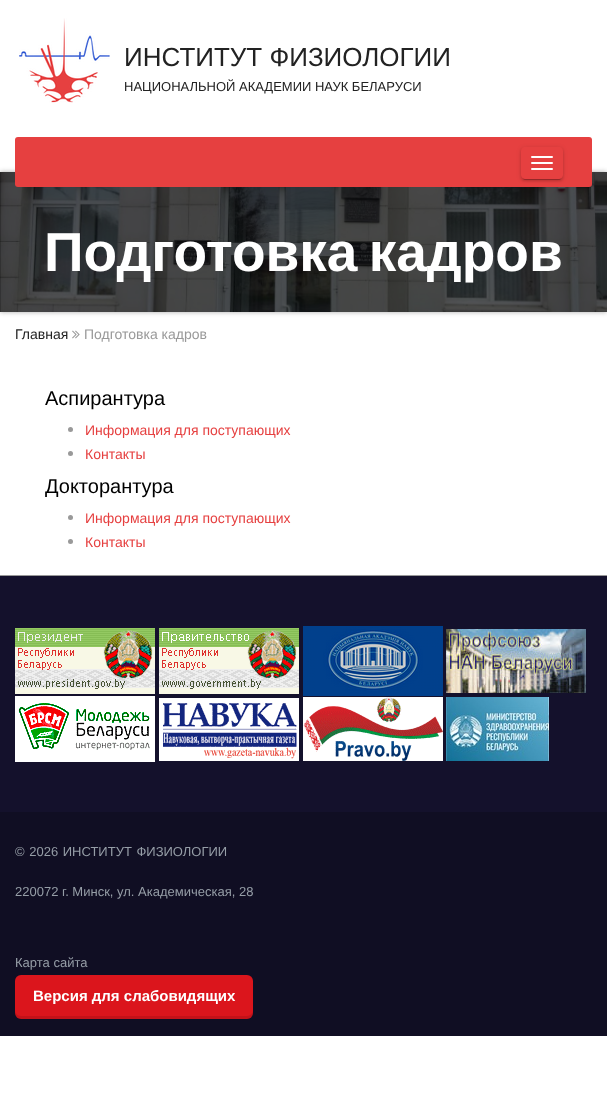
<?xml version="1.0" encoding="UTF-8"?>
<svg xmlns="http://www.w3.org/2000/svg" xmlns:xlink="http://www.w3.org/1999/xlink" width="607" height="1101">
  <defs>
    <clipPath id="clip1"><path d="M 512 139 h 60 v 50 h -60 z m 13 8 h 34 c 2 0 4 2 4 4 v 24 c 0 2 -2 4 -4 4 h -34 c -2 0 -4 -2 -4 -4 v -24 c 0 -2 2 -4 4 -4 z" clip-rule="evenodd" /></clipPath>
    <clipPath id="clip2"><path d="M 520 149 h 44 v 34 h -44 z m 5 -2 h 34 c 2 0 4 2 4 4 v 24 c 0 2 -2 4 -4 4 h -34 c -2 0 -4 -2 -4 -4 v -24 c 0 -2 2 -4 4 -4 z" clip-rule="evenodd" /></clipPath>
    <clipPath id="clip3"><path d="M 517 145 h 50 v 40 h -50 z m 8 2 h 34 c 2 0 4 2 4 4 v 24 c 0 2 -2 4 -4 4 h -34 c -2 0 -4 -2 -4 -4 v -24 c 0 -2 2 -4 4 -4 z" clip-rule="evenodd" /></clipPath>
  </defs>
  <rect width="100%" height="100%" fill="#ffffff" />
  <image x="19" y="18" width="91" height="85" xlink:href="image1.png" />
  <rect y="172" width="607" height="140" fill="#aaaaaa" filter="blur(2.5px)" />
  <image x="0" y="172" width="607" height="140" xlink:href="image2.png" />
  <rect x="15" y="137" width="577" height="50" rx="3" fill="#e64040" />
  <g clip-path="url(#clip1)">
    <rect x="521" y="148" width="42" height="32" rx="4" fill="#000000" fill-opacity="0.12" filter="blur(2.5px)" />
  </g>
  <g clip-path="url(#clip2)">
    <rect x="523" y="152" width="38" height="28" rx="2" fill="#000000" fill-opacity="0.2" filter="blur(0.5px)" />
  </g>
  <g clip-path="url(#clip3)">
    <rect x="521" y="149" width="42" height="32" rx="4" fill="#000000" fill-opacity="0.14" filter="blur(1px)" />
  </g>
  <rect x="531" y="156" width="22" height="2" rx="1" fill="#ffffff" />
  <rect x="531" y="162" width="22" height="2" rx="1" fill="#ffffff" />
  <rect x="531" y="168" width="22" height="2" rx="1" fill="#ffffff" />
  <image x="72" y="330" width="8" height="9" xlink:href="image3.png" />
  <circle cx="70.5" cy="429.5" r="2.5" fill="#999999" />
  <circle cx="70.5" cy="453.5" r="2.5" fill="#999999" />
  <circle cx="70.5" cy="517.5" r="2.5" fill="#999999" />
  <circle cx="70.5" cy="541.5" r="2.5" fill="#999999" />
  <rect y="576" width="607" height="236" fill="#14112c" />
  <rect y="575" width="607" height="1" fill="#999999" />
  <image x="15" y="628" width="140" height="66" xlink:href="image4.png" />
  <image x="159" y="628" width="140" height="66" xlink:href="image5.png" />
  <image x="303" y="626" width="140" height="70" xlink:href="image6.png" />
  <image x="446" y="629" width="140" height="64" xlink:href="image7.png" />
  <image x="15" y="696" width="140" height="66" xlink:href="image8.png" />
  <image x="159" y="698" width="140" height="63" xlink:href="image9.png" />
  <image x="303" y="697" width="140" height="64" xlink:href="image10.png" />
  <image x="446" y="697" width="103" height="64" xlink:href="image11.png" />
  <rect y="812" width="607" height="224" fill="#100e23" />
  <rect x="15" y="975" width="238" height="44" rx="6" fill="#db151c" />
  <path d="M 15 1010 v 3 c 0 3 3 6 6 6 h 226 c 3 0 6 -3 6 -6 v -3 c 0 3 -3 6 -6 6 h -226 c -3 0 -6 -3 -6 -6 z" fill="#000000" fill-opacity="0.1" />
  <text x="124" y="66" style="font-family: Liberation Sans; font-size: 26px; fill: #222222">ИНСТИТУТ ФИЗИОЛОГИИ</text>
  <text x="124" y="91" style="font-family: Liberation Sans; font-size: 13px; fill: #222222">НАЦИОНАЛЬНОЙ АКАДЕМИИ НАУК БЕЛАРУСИ</text>
  <text x="44" y="271" word-spacing="-4" style="font-family: Liberation Sans; font-size: 55px; font-weight: bold; fill: #ffffff">Подготовка кадров</text>
  <text x="15" y="339" style="font-family: Liberation Sans; font-size: 14px; fill: #222222">Главная</text>
  <text x="84" y="339" style="font-family: Liberation Sans; font-size: 14px; fill: #999999">Подготовка кадров</text>
  <text x="45" y="405" style="font-family: Liberation Sans; font-size: 20px; fill: #000000">Аспирантура</text>
  <text x="85" y="435" style="font-family: Liberation Sans; font-size: 14px; fill: #e64040">Информация для поступающих</text>
  <text x="85" y="459" style="font-family: Liberation Sans; font-size: 14px; fill: #e64040">Контакты</text>
  <text x="45" y="493" style="font-family: Liberation Sans; font-size: 20px; fill: #000000">Докторантура</text>
  <text x="85" y="523" style="font-family: Liberation Sans; font-size: 14px; fill: #e64040">Информация для поступающих</text>
  <text x="85" y="547" style="font-family: Liberation Sans; font-size: 14px; fill: #e64040">Контакты</text>
  <text x="15" y="856" word-spacing="1" style="font-family: Liberation Sans; font-size: 13px; fill: #969ea7">© 2026 ИНСТИТУТ ФИЗИОЛОГИИ</text>
  <text x="15" y="896" style="font-family: Liberation Sans; font-size: 13px; fill: #969ea7">220072 г. Минск, ул. Академическая, 28</text>
  <text x="15" y="967" style="font-family: Liberation Sans; font-size: 13px; fill: #969ea7">Карта сайта</text>
  <text x="33" y="1001" style="font-family: Liberation Sans; font-size: 15px; font-weight: bold; fill: #ffffff">Версия для слабовидящих</text>
</svg>
